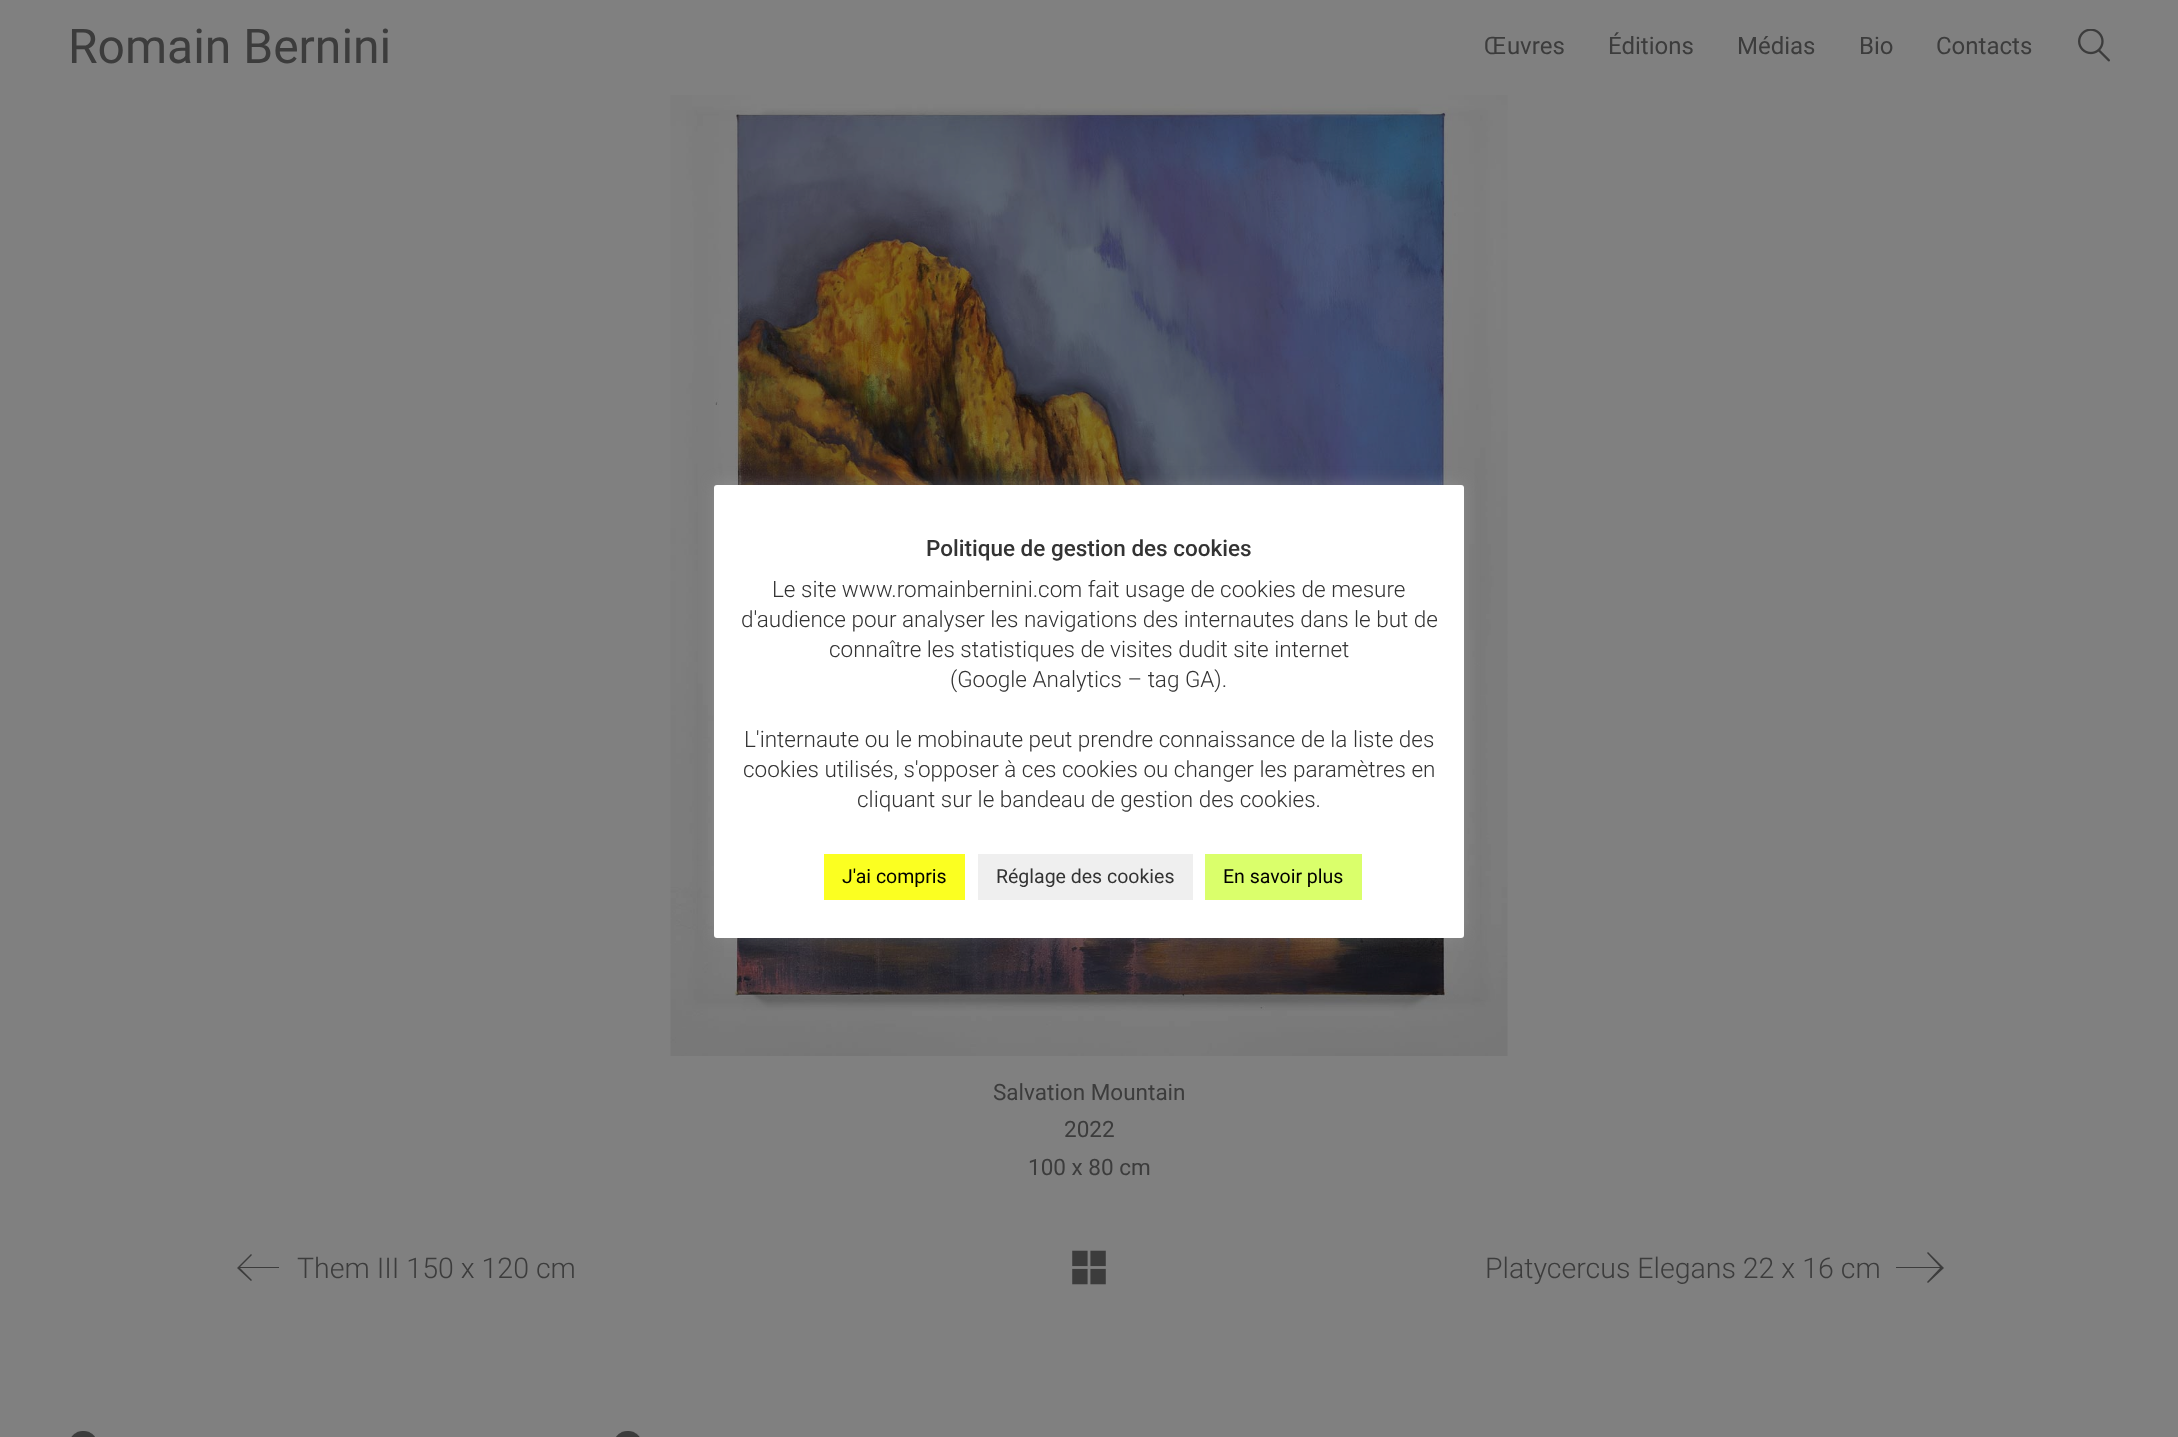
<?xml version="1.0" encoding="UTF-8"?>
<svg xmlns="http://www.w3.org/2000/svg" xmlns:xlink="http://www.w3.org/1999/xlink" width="2178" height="1437">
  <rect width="100%" height="100%" fill="#808080" />
  <image x="2078" y="29" width="32" height="33" xlink:href="image1.png" />
  <image x="670" y="95" width="838" height="961" xlink:href="image2.png" />
  <path d="M 279 1267 h -39 l 12 -12 l -1 -1 l -14 14 l 14 13 l 1 -1 l -12 -12 h 39 z" fill="#3c3c3c" />
  <image x="1072" y="1250" width="34" height="35" xlink:href="image3.png" />
  <path d="M 1928 1252 l -1 1 l 13 14 h -44 v 1 h 44 l -13 14 l 1 1 l 16 -15 z" fill="#3c3c3c" />
  <rect x="714" y="483" width="750" height="453" rx="3" fill="#acabab" fill-opacity="0.3" filter="blur(7.5px)" />
  <rect x="714" y="485" width="750" height="453" rx="3" fill="#ffffff" />
  <rect x="824" y="854" width="141" height="46" fill="#fbff21" />
  <rect x="978" y="854" width="215" height="46" fill="#efefef" />
  <rect x="1205" y="854" width="157" height="46" fill="#daff6b" />
  <image x="71" y="1431" width="24" height="6" xlink:href="image4.png" />
  <image x="616" y="1431" width="24" height="6" xlink:href="image5.png" />
  <text x="68" y="63" style="font-family: Roboto; font-size: 48px; fill: #3c3c3c">Romain Bernini</text>
  <text x="1484" y="54" style="font-family: Roboto; font-size: 24px; fill: #3c3c3c">Œuvres</text>
  <text x="1608" y="54" style="font-family: Roboto; font-size: 24px; fill: #3c3c3c">Éditions</text>
  <text x="1737" y="54" style="font-family: Roboto; font-size: 24px; fill: #3c3c3c">Médias</text>
  <text x="1859" y="54" style="font-family: Roboto; font-size: 24px; fill: #3c3c3c">Bio</text>
  <text x="1936" y="54" style="font-family: Roboto; font-size: 24px; fill: #3c3c3c">Contacts</text>
  <text x="993" y="1100" style="font-family: Roboto; font-size: 22.5px; fill: #3c3c3c">Salvation Mountain</text>
  <text x="1064" y="1137" style="font-family: Roboto; font-size: 22.5px; fill: #3c3c3c">2022</text>
  <text x="1028" y="1175" style="font-family: Roboto; font-size: 22.5px; fill: #3c3c3c">100 x 80 cm</text>
  <text x="297" y="1278" style="font-family: Roboto; font-size: 28.5px; font-weight: 300; fill: #3c3c3c">Them III 150 x 120 cm</text>
  <text x="1485" y="1278" style="font-family: Roboto; font-size: 28.5px; font-weight: 300; fill: #3c3c3c">Platycercus Elegans 22 x 16 cm</text>
  <text x="926" y="556" style="font-family: Roboto; font-size: 22.5px; font-weight: 500; fill: #333333">Politique de gestion des cookies</text>
  <text x="772" y="597" style="font-family: Roboto; font-size: 22.5px; font-weight: 300; fill: #333333">Le site www.romainbernini.com fait usage de cookies de mesure</text>
  <text x="741" y="627" style="font-family: Roboto; font-size: 22.5px; font-weight: 300; fill: #333333">d'audience pour analyser les navigations des internautes dans le but de</text>
  <text x="829" y="657" style="font-family: Roboto; font-size: 22.5px; font-weight: 300; fill: #333333">connaître les statistiques de visites dudit site internet</text>
  <text x="950" y="687" style="font-family: Roboto; font-size: 22.5px; font-weight: 300; fill: #333333">(Google Analytics – tag GA).</text>
  <text x="744" y="747" style="font-family: Roboto; font-size: 22.5px; font-weight: 300; fill: #333333">L'internaute ou le mobinaute peut prendre connaissance de la liste des</text>
  <text x="743" y="777" style="font-family: Roboto; font-size: 22.5px; font-weight: 300; fill: #333333">cookies utilisés, s'opposer à ces cookies ou changer les paramètres en</text>
  <text x="857" y="807" style="font-family: Roboto; font-size: 22.5px; font-weight: 300; fill: #333333">cliquant sur le bandeau de gestion des cookies.</text>
  <text x="842" y="883" style="font-family: Roboto; font-size: 19.5px; fill: #000000">J'ai compris</text>
  <text x="996" y="883" style="font-family: Roboto; font-size: 19.5px; fill: #333333">Réglage des cookies</text>
  <text x="1223" y="883" style="font-family: Roboto; font-size: 19.5px; fill: #000000">En savoir plus</text>
</svg>
